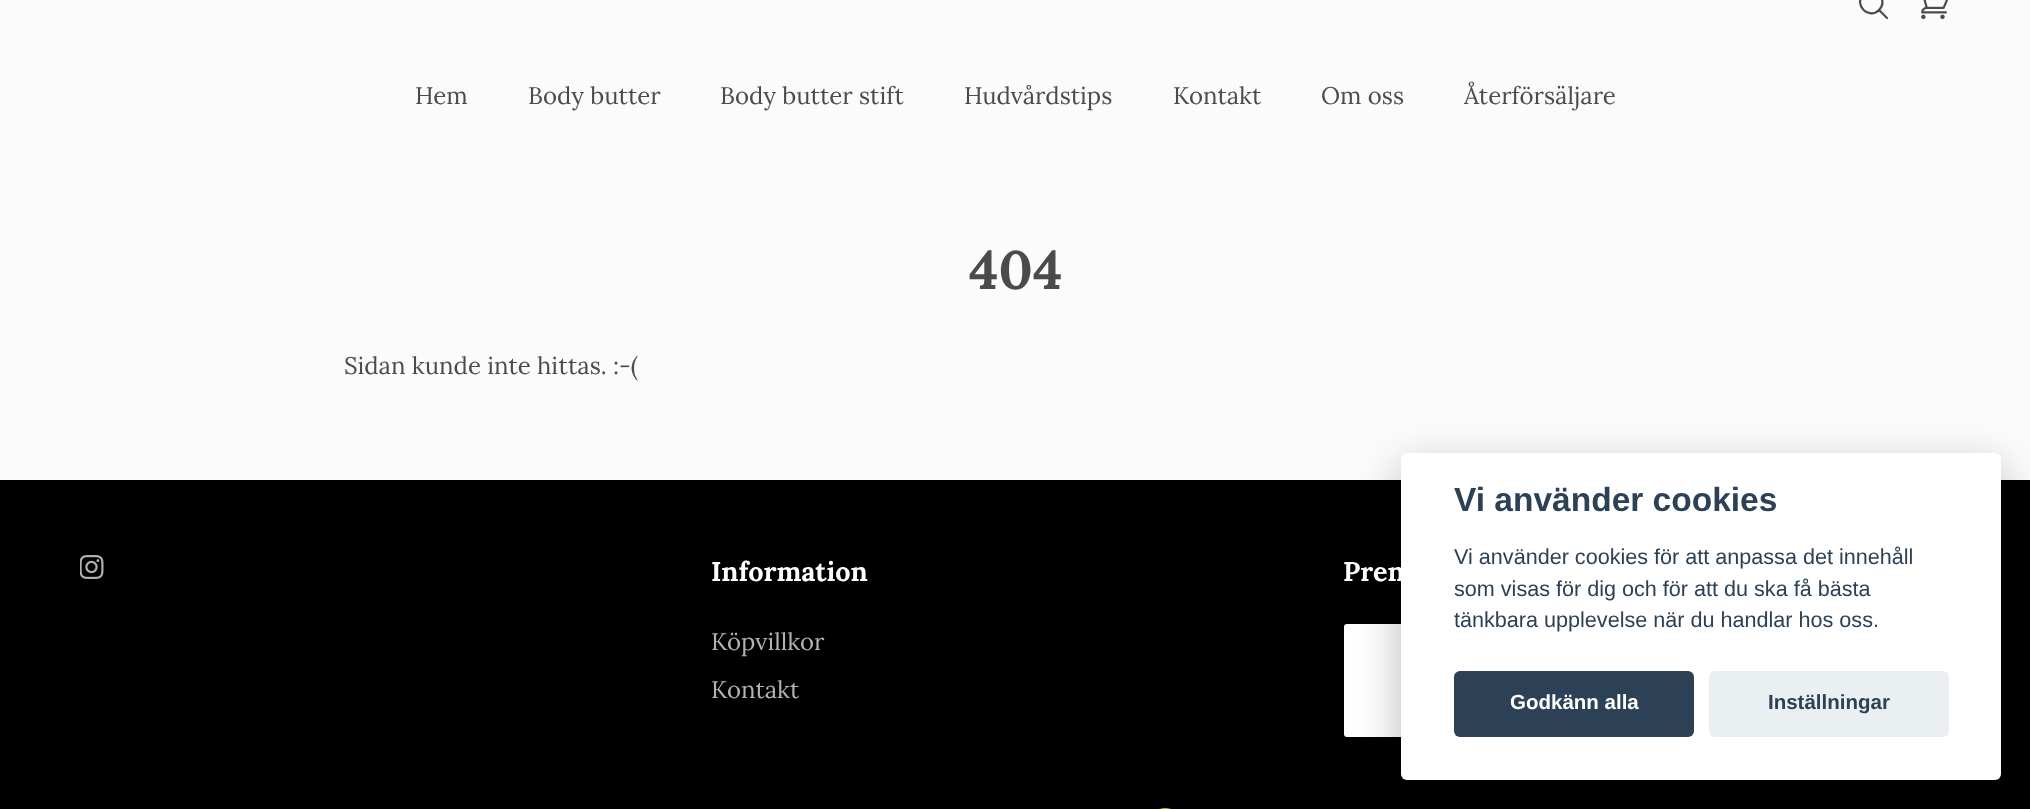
<?xml version="1.0" encoding="UTF-8"?>
<svg xmlns="http://www.w3.org/2000/svg" xmlns:xlink="http://www.w3.org/1999/xlink" width="2030" height="809">
  <rect width="100%" height="100%" fill="#fbfbfb" />
  <path d="M 1887 18 l -8 -8 m 0 0 c 10.5 -10 -5.5 -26 -15.5 -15.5 c -10.5 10 5.5 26 15.5 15.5 z" fill="none" stroke="#4b4b4b" stroke-width="2.2" stroke-linecap="round" stroke-linejoin="round" />
  <image x="1921" y="0" width="27" height="20" xlink:href="image1.png" />
  <rect y="480" width="2030" height="329" fill="#000000" />
  <image x="80" y="555" width="24" height="24" xlink:href="image2.png" />
  <rect x="1344" y="624" width="608" height="113" rx="3" fill="#ffffff" />
  <image x="1159" y="808" width="13" height="1" xlink:href="image3.png" />
  <rect x="1401" y="468" width="600" height="327" rx="6" fill="#020203" fill-opacity="0.28" filter="blur(22.5px)" />
  <rect x="1401" y="453" width="600" height="327" rx="6" fill="#ffffff" />
  <rect x="1454" y="671" width="240" height="66" rx="6" fill="#2d4156" />
  <rect x="1709" y="671" width="240" height="66" rx="6" fill="#eaeff2" />
  <text x="415" y="104" style="font-family: Lora; font-size: 24px; fill: #4b4b4b">Hem</text>
  <text x="528" y="104" style="font-family: Lora; font-size: 24px; fill: #4b4b4b">Body butter</text>
  <text x="720" y="104" style="font-family: Lora; font-size: 24px; fill: #4b4b4b">Body butter stift</text>
  <text x="964" y="104" style="font-family: Lora; font-size: 24px; fill: #4b4b4b">Hudvårdstips</text>
  <text x="1173" y="104" style="font-family: Lora; font-size: 24px; fill: #4b4b4b">Kontakt</text>
  <text x="1321" y="104" style="font-family: Lora; font-size: 24px; fill: #4b4b4b">Om oss</text>
  <text x="1464" y="104" style="font-family: Lora; font-size: 24px; fill: #4b4b4b">Återförsäljare</text>
  <text x="969" y="289" style="font-family: Lora; font-size: 54px; font-weight: bold; fill: #4b4b4b">404</text>
  <text x="344" y="374" style="font-family: Lora; font-size: 24px; fill: #4b4b4b">Sidan kunde inte hittas. :-(</text>
  <text x="711" y="581" style="font-family: Lora; font-size: 27px; font-weight: bold; fill: #ffffff">Information</text>
  <text x="711" y="650" style="font-family: Lora; font-size: 24px; fill: #b3b3b3">Köpvillkor</text>
  <text x="711" y="698" style="font-family: Lora; font-size: 24px; fill: #b3b3b3">Kontakt</text>
  <text x="1343" y="581" style="font-family: Lora; font-size: 27px; font-weight: bold; fill: #ffffff">Pren</text>
  <text x="1454" y="511" style="font-family: Liberation Sans; font-size: 33.5px; font-weight: bold; fill: #2d4156">Vi använder cookies</text>
  <text x="1454" y="564" style="font-family: Liberation Sans; font-size: 21.6px; fill: #2d4156">Vi använder cookies för att anpassa det innehåll</text>
  <text x="1454" y="596" style="font-family: Liberation Sans; font-size: 21.6px; fill: #2d4156">som visas för dig och för att du ska få bästa</text>
  <text x="1454" y="627" style="font-family: Liberation Sans; font-size: 21.6px; fill: #2d4156">tänkbara upplevelse när du handlar hos oss.</text>
  <text x="1510" y="709" style="font-family: Liberation Sans; font-size: 20.5px; font-weight: bold; fill: #ffffff">Godkänn alla</text>
  <text x="1768" y="709" style="font-family: Liberation Sans; font-size: 20.5px; font-weight: bold; fill: #2d4156">Inställningar</text>
</svg>
